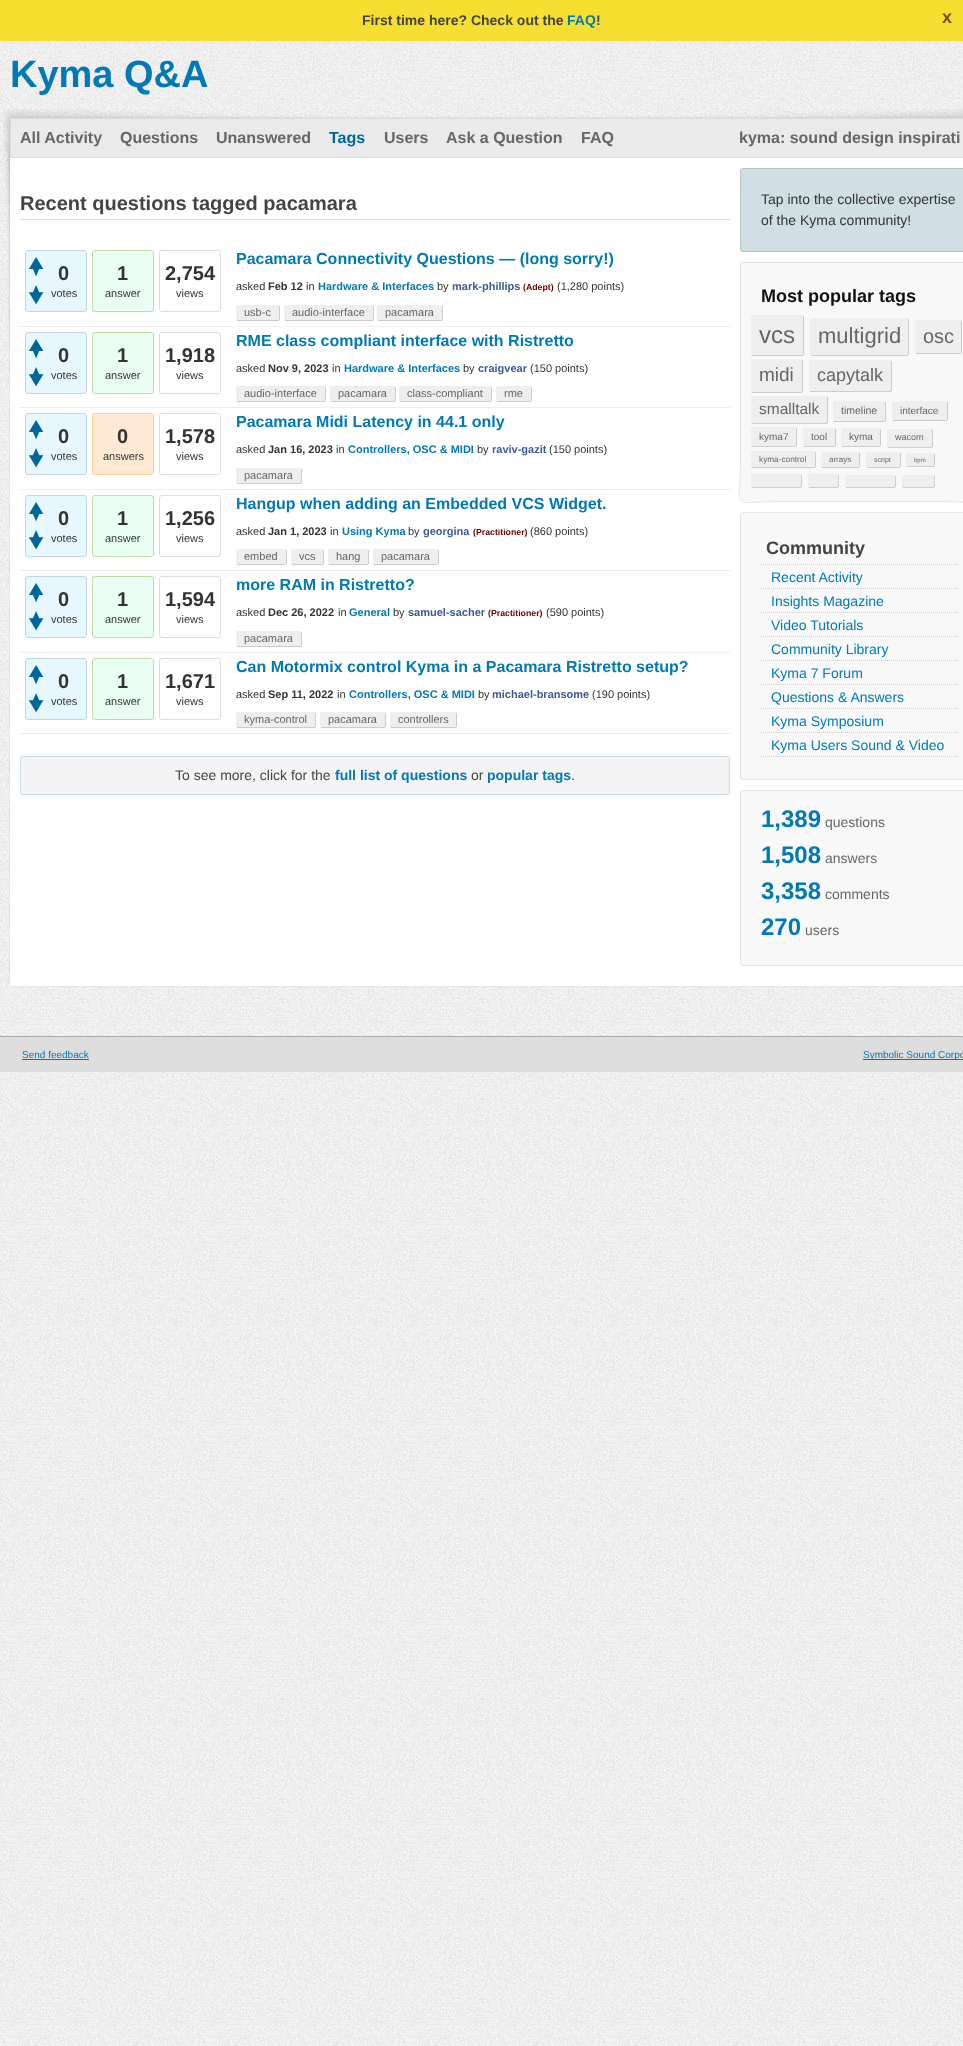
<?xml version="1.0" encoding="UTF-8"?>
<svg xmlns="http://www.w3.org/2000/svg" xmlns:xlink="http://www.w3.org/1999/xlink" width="963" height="2046">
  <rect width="100%" height="100%" fill="#ffffff" />
  <image x="0" y="41" width="963" height="2005" xlink:href="image1.png" />
  <rect width="963" height="41" fill="#f6df30" />
  <image x="3" y="109" width="960" height="239" xlink:href="image2.png" />
  <rect x="10" y="118" width="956" height="868" fill="#000000" fill-opacity="0.1" filter="blur(1px)" />
  <rect x="10" y="158" width="953" height="828" fill="#ffffff" />
  <rect x="10.5" y="118.5" width="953" height="39" fill="#eaeaea" stroke="#dddddd" />
  <rect x="20" y="219" width="710" height="1" fill="#dddddd" />
  <rect x="20" y="326" width="710" height="1" fill="#eeeeee" />
  <rect x="25.5" y="250.5" width="61" height="61" rx="2.5" fill="#e7f7ff" stroke="#c5d6df" />
  <image x="29" y="257" width="15" height="20" xlink:href="image3.png" />
  <image x="28" y="285" width="16" height="20" xlink:href="image4.png" />
  <rect x="92.5" y="250.5" width="61" height="61" rx="2.5" fill="#eafff4" stroke="#c1daa6" />
  <rect x="159.5" y="250.5" width="61" height="61" rx="2.5" fill="none" stroke="#dddddd" />
  <rect x="236" y="305" width="44" height="16" rx="2" fill="#eeeeee" />
  <rect x="279" y="306" width="1" height="14" fill="#cccccc" />
  <rect x="237" y="320" width="42" height="1" fill="#cccccc" />
  <rect x="284" y="305" width="90" height="16" rx="2" fill="#eeeeee" />
  <rect x="373" y="306" width="1" height="14" fill="#cccccc" />
  <rect x="285" y="320" width="88" height="1" fill="#cccccc" />
  <rect x="377" y="305" width="66" height="16" rx="2" fill="#eeeeee" />
  <rect x="442" y="306" width="1" height="14" fill="#cccccc" />
  <rect x="378" y="320" width="64" height="1" fill="#cccccc" />
  <rect x="20" y="407" width="710" height="1" fill="#eeeeee" />
  <rect x="25.5" y="332.5" width="61" height="61" rx="2.5" fill="#e7f7ff" stroke="#c5d6df" />
  <image x="29" y="339" width="15" height="20" xlink:href="image3.png" />
  <image x="28" y="367" width="16" height="20" xlink:href="image4.png" />
  <rect x="92.5" y="332.5" width="61" height="61" rx="2.5" fill="#eafff4" stroke="#c1daa6" />
  <rect x="159.5" y="332.5" width="61" height="61" rx="2.5" fill="none" stroke="#dddddd" />
  <rect x="236" y="386" width="90" height="16" rx="2" fill="#eeeeee" />
  <rect x="325" y="387" width="1" height="14" fill="#cccccc" />
  <rect x="237" y="401" width="88" height="1" fill="#cccccc" />
  <rect x="330" y="386" width="66" height="16" rx="2" fill="#eeeeee" />
  <rect x="395" y="387" width="1" height="14" fill="#cccccc" />
  <rect x="331" y="401" width="64" height="1" fill="#cccccc" />
  <rect x="399" y="386" width="93" height="16" rx="2" fill="#eeeeee" />
  <rect x="491" y="387" width="1" height="14" fill="#cccccc" />
  <rect x="400" y="401" width="91" height="1" fill="#cccccc" />
  <rect x="496" y="386" width="36" height="16" rx="2" fill="#eeeeee" />
  <rect x="531" y="387" width="1" height="14" fill="#cccccc" />
  <rect x="497" y="401" width="34" height="1" fill="#cccccc" />
  <rect x="20" y="489" width="710" height="1" fill="#eeeeee" />
  <rect x="25.5" y="413.5" width="61" height="61" rx="2.5" fill="#e7f7ff" stroke="#c5d6df" />
  <image x="29" y="420" width="15" height="20" xlink:href="image3.png" />
  <image x="28" y="448" width="16" height="20" xlink:href="image4.png" />
  <rect x="92.5" y="413.5" width="61" height="61" rx="2.5" fill="#ffe9d5" stroke="#ffd196" />
  <rect x="159.5" y="413.5" width="61" height="61" rx="2.5" fill="none" stroke="#dddddd" />
  <rect x="236" y="468" width="66" height="16" rx="2" fill="#eeeeee" />
  <rect x="301" y="469" width="1" height="14" fill="#cccccc" />
  <rect x="237" y="483" width="64" height="1" fill="#cccccc" />
  <rect x="20" y="570" width="710" height="1" fill="#eeeeee" />
  <rect x="25.5" y="495.5" width="61" height="61" rx="2.5" fill="#e7f7ff" stroke="#c5d6df" />
  <image x="29" y="502" width="15" height="20" xlink:href="image3.png" />
  <image x="28" y="530" width="16" height="20" xlink:href="image4.png" />
  <rect x="92.5" y="495.5" width="61" height="61" rx="2.5" fill="#eafff4" stroke="#c1daa6" />
  <rect x="159.5" y="495.5" width="61" height="61" rx="2.5" fill="none" stroke="#dddddd" />
  <rect x="236" y="549" width="51" height="16" rx="2" fill="#eeeeee" />
  <rect x="286" y="550" width="1" height="14" fill="#cccccc" />
  <rect x="237" y="564" width="49" height="1" fill="#cccccc" />
  <rect x="291" y="549" width="33" height="16" rx="2" fill="#eeeeee" />
  <rect x="323" y="550" width="1" height="14" fill="#cccccc" />
  <rect x="292" y="564" width="31" height="1" fill="#cccccc" />
  <rect x="328" y="549" width="41" height="16" rx="2" fill="#eeeeee" />
  <rect x="368" y="550" width="1" height="14" fill="#cccccc" />
  <rect x="329" y="564" width="39" height="1" fill="#cccccc" />
  <rect x="373" y="549" width="66" height="16" rx="2" fill="#eeeeee" />
  <rect x="438" y="550" width="1" height="14" fill="#cccccc" />
  <rect x="374" y="564" width="64" height="1" fill="#cccccc" />
  <rect x="20" y="652" width="710" height="1" fill="#eeeeee" />
  <rect x="25.5" y="576.5" width="61" height="61" rx="2.5" fill="#e7f7ff" stroke="#c5d6df" />
  <image x="29" y="583" width="15" height="20" xlink:href="image3.png" />
  <image x="28" y="611" width="16" height="20" xlink:href="image4.png" />
  <rect x="92.5" y="576.5" width="61" height="61" rx="2.5" fill="#eafff4" stroke="#c1daa6" />
  <rect x="159.5" y="576.5" width="61" height="61" rx="2.5" fill="none" stroke="#dddddd" />
  <rect x="236" y="631" width="66" height="16" rx="2" fill="#eeeeee" />
  <rect x="301" y="632" width="1" height="14" fill="#cccccc" />
  <rect x="237" y="646" width="64" height="1" fill="#cccccc" />
  <rect x="20" y="733" width="710" height="1" fill="#eeeeee" />
  <rect x="25.5" y="658.5" width="61" height="61" rx="2.5" fill="#e7f7ff" stroke="#c5d6df" />
  <image x="29" y="665" width="15" height="20" xlink:href="image3.png" />
  <image x="28" y="693" width="16" height="20" xlink:href="image4.png" />
  <rect x="92.5" y="658.5" width="61" height="61" rx="2.5" fill="#eafff4" stroke="#c1daa6" />
  <rect x="159.5" y="658.5" width="61" height="61" rx="2.5" fill="none" stroke="#dddddd" />
  <rect x="236" y="712" width="80" height="16" rx="2" fill="#eeeeee" />
  <rect x="315" y="713" width="1" height="14" fill="#cccccc" />
  <rect x="237" y="727" width="78" height="1" fill="#cccccc" />
  <rect x="320" y="712" width="66" height="16" rx="2" fill="#eeeeee" />
  <rect x="385" y="713" width="1" height="14" fill="#cccccc" />
  <rect x="321" y="727" width="64" height="1" fill="#cccccc" />
  <rect x="390" y="712" width="67" height="16" rx="2" fill="#eeeeee" />
  <rect x="456" y="713" width="1" height="14" fill="#cccccc" />
  <rect x="391" y="727" width="65" height="1" fill="#cccccc" />
  <rect x="20" y="756" width="710" height="39" rx="3" fill="#000000" fill-opacity="0.05" filter="blur(2.5px)" />
  <rect x="20.5" y="756.5" width="709" height="38" rx="2.5" fill="#f4f4f4" stroke="#c7dce6" />
  <rect x="740.5" y="168.5" width="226" height="83" rx="2.5" fill="#d0dfe4" stroke="#b6c4c8" />
  <rect x="740" y="262" width="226" height="240" rx="3" fill="#f8f8f8" />
  <path d="M 741 263 l 2 -0.5 h 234 l 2 0.5" fill="none" stroke="#dddddd" />
  <path d="M 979 263 l 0.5 2 v 195 c 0 53 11.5 41.5 -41.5 41.5 h -156 c -53 0 -41.5 11.5 -41.5 -41.5 v -195 l 0.5 -2" fill="none" stroke="#e5e5e5" />
  <rect x="751" y="315" width="53" height="41" rx="2" fill="#eeeeee" />
  <rect x="803" y="316" width="1" height="39" fill="#cccccc" />
  <rect x="752" y="355" width="51" height="1" fill="#cccccc" />
  <rect x="810" y="318" width="99" height="38" rx="2" fill="#eeeeee" />
  <rect x="908" y="319" width="1" height="36" fill="#cccccc" />
  <rect x="811" y="355" width="97" height="1" fill="#cccccc" />
  <rect x="915" y="320" width="47" height="34" rx="2" fill="#eeeeee" />
  <rect x="961" y="321" width="1" height="32" fill="#cccccc" />
  <rect x="916" y="353" width="45" height="1" fill="#cccccc" />
  <rect x="751" y="359" width="52" height="34" rx="2" fill="#eeeeee" />
  <rect x="802" y="360" width="1" height="32" fill="#cccccc" />
  <rect x="752" y="392" width="50" height="1" fill="#cccccc" />
  <rect x="809" y="360" width="83" height="32" rx="2" fill="#eeeeee" />
  <rect x="891" y="361" width="1" height="30" fill="#cccccc" />
  <rect x="810" y="391" width="81" height="1" fill="#cccccc" />
  <rect x="751" y="396" width="77" height="28" rx="2" fill="#eeeeee" />
  <rect x="827" y="397" width="1" height="26" fill="#cccccc" />
  <rect x="752" y="423" width="75" height="1" fill="#cccccc" />
  <rect x="833" y="401" width="53" height="21" rx="2" fill="#eeeeee" />
  <rect x="885" y="402" width="1" height="19" fill="#cccccc" />
  <rect x="834" y="421" width="51" height="1" fill="#cccccc" />
  <rect x="892" y="401" width="56" height="20" rx="2" fill="#eeeeee" />
  <rect x="947" y="402" width="1" height="18" fill="#cccccc" />
  <rect x="893" y="420" width="54" height="1" fill="#cccccc" />
  <rect x="751" y="427" width="46" height="20" rx="2" fill="#eeeeee" />
  <rect x="796" y="428" width="1" height="18" fill="#cccccc" />
  <rect x="752" y="446" width="44" height="1" fill="#cccccc" />
  <rect x="803" y="428" width="33" height="19" rx="2" fill="#eeeeee" />
  <rect x="835" y="429" width="1" height="17" fill="#cccccc" />
  <rect x="804" y="446" width="31" height="1" fill="#cccccc" />
  <rect x="841" y="428" width="40" height="19" rx="2" fill="#eeeeee" />
  <rect x="880" y="429" width="1" height="17" fill="#cccccc" />
  <rect x="842" y="446" width="38" height="1" fill="#cccccc" />
  <rect x="887" y="429" width="46" height="19" rx="2" fill="#eeeeee" />
  <rect x="932" y="430" width="1" height="17" fill="#cccccc" />
  <rect x="888" y="447" width="44" height="1" fill="#cccccc" />
  <rect x="751" y="451" width="65" height="17" rx="2" fill="#eeeeee" />
  <rect x="815" y="452" width="1" height="15" fill="#cccccc" />
  <rect x="752" y="467" width="63" height="1" fill="#cccccc" />
  <rect x="821" y="452" width="39" height="16" rx="2" fill="#eeeeee" />
  <rect x="859" y="453" width="1" height="14" fill="#cccccc" />
  <rect x="822" y="467" width="37" height="1" fill="#cccccc" />
  <rect x="866" y="452" width="35" height="16" rx="2" fill="#eeeeee" />
  <rect x="900" y="453" width="1" height="14" fill="#cccccc" />
  <rect x="867" y="467" width="33" height="1" fill="#cccccc" />
  <rect x="906" y="453" width="29" height="14" rx="2" fill="#eeeeee" />
  <rect x="934" y="454" width="1" height="12" fill="#cccccc" />
  <rect x="907" y="466" width="27" height="1" fill="#cccccc" />
  <rect x="751" y="474" width="51" height="14" rx="2" fill="#eeeeee" />
  <rect x="801" y="475" width="1" height="12" fill="#cccccc" />
  <rect x="752" y="487" width="49" height="1" fill="#cccccc" />
  <rect x="808" y="474" width="31" height="14" rx="2" fill="#eeeeee" />
  <rect x="838" y="475" width="1" height="12" fill="#cccccc" />
  <rect x="809" y="487" width="29" height="1" fill="#cccccc" />
  <rect x="845" y="475" width="51" height="13" rx="2" fill="#eeeeee" />
  <rect x="895" y="476" width="1" height="11" fill="#cccccc" />
  <rect x="846" y="487" width="49" height="1" fill="#cccccc" />
  <rect x="902" y="475" width="33" height="13" rx="2" fill="#eeeeee" />
  <rect x="934" y="476" width="1" height="11" fill="#cccccc" />
  <rect x="903" y="487" width="31" height="1" fill="#cccccc" />
  <rect x="740.5" y="512.5" width="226" height="267" rx="2.5" fill="#f8f8f8" stroke="#e5e5e5" />
  <path d="M 761 564.5 h 198" fill="none" stroke="#cccccc" stroke-dasharray="1 1" />
  <path d="M 761 588.5 h 198" fill="none" stroke="#cccccc" stroke-dasharray="1 1" />
  <path d="M 761 612.5 h 198" fill="none" stroke="#cccccc" stroke-dasharray="1 1" />
  <path d="M 761 636.5 h 198" fill="none" stroke="#cccccc" stroke-dasharray="1 1" />
  <path d="M 761 660.5 h 198" fill="none" stroke="#cccccc" stroke-dasharray="1 1" />
  <path d="M 761 684.5 h 198" fill="none" stroke="#cccccc" stroke-dasharray="1 1" />
  <path d="M 761 708.5 h 198" fill="none" stroke="#cccccc" stroke-dasharray="1 1" />
  <path d="M 761 732.5 h 198" fill="none" stroke="#cccccc" stroke-dasharray="1 1" />
  <path d="M 761 756.5 h 198" fill="none" stroke="#cccccc" stroke-dasharray="1 1" />
  <rect x="740.5" y="790.5" width="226" height="175" rx="2.5" fill="#f8f8f8" stroke="#e5e5e5" />
  <rect y="1037" width="963" height="35" fill="#dddddd" />
  <rect y="1036" width="963" height="1" fill="#aaaaaa" />
  <rect x="22" y="1059" width="67" height="1" fill="#0179b5" />
  <rect x="863" y="1059" width="100" height="1" fill="#0179b5" />
  <text x="362" y="25" style="font-family: Liberation Sans; font-size: 14px; font-weight: bold; fill: #444444">First time here? Check out the</text>
  <text x="567" y="25" style="font-family: Liberation Sans; font-size: 14px; font-weight: bold; fill: #0179b5">FAQ</text>
  <text x="596" y="25" style="font-family: Liberation Sans; font-size: 14px; font-weight: bold; fill: #444444">!</text>
  <text x="942" y="23" style="font-family: Liberation Sans; font-size: 18px; font-weight: bold; fill: #735005">x</text>
  <text x="10" y="87" style="font-family: Liberation Sans; font-size: 38px; font-weight: bold; fill: #0179b5">Kyma Q&amp;A</text>
  <text x="20" y="143" style="font-family: Liberation Sans; font-size: 16px; font-weight: bold; fill: #666666">All Activity</text>
  <text x="120" y="143" style="font-family: Liberation Sans; font-size: 16px; font-weight: bold; fill: #666666">Questions</text>
  <text x="216" y="143" style="font-family: Liberation Sans; font-size: 16px; font-weight: bold; fill: #666666">Unanswered</text>
  <text x="329" y="143" style="font-family: Liberation Sans; font-size: 16px; font-weight: bold; fill: #006699">Tags</text>
  <text x="384" y="143" style="font-family: Liberation Sans; font-size: 16px; font-weight: bold; fill: #666666">Users</text>
  <text x="446" y="143" style="font-family: Liberation Sans; font-size: 16px; font-weight: bold; fill: #666666">Ask a Question</text>
  <text x="581" y="143" style="font-family: Liberation Sans; font-size: 16px; font-weight: bold; fill: #666666">FAQ</text>
  <text x="739" y="143" style="font-family: Liberation Sans; font-size: 16px; font-weight: bold; fill: #666666">kyma: sound design inspirati</text>
  <text x="20" y="210" style="font-family: Liberation Sans; font-size: 20px; font-weight: bold; fill: #444444">Recent questions tagged pacamara</text>
  <text x="58" y="280" style="font-family: Liberation Sans; font-size: 20px; font-weight: bold; fill: #333333">0</text>
  <text x="51" y="297" style="font-family: Liberation Sans; font-size: 11px; fill: #333333">votes</text>
  <text x="117" y="280" style="font-family: Liberation Sans; font-size: 20px; font-weight: bold; fill: #333333">1</text>
  <text x="105" y="297" style="font-family: Liberation Sans; font-size: 11px; fill: #333333">answer</text>
  <text x="165" y="280" style="font-family: Liberation Sans; font-size: 20px; font-weight: bold; fill: #333333">2,754</text>
  <text x="176" y="297" style="font-family: Liberation Sans; font-size: 11px; fill: #333333">views</text>
  <text x="236" y="264" style="font-family: Liberation Sans; font-size: 16px; font-weight: bold; fill: #0179b5">Pacamara Connectivity Questions — (long sorry!)</text>
  <text x="236" y="290" style="font-family: Liberation Sans; font-size: 11px; fill: #333333">asked</text>
  <text x="268" y="290" style="font-family: Liberation Sans; font-size: 11px; font-weight: bold; fill: #333333">Feb 12</text>
  <text x="306" y="290" style="font-family: Liberation Sans; font-size: 11px; fill: #333333">in</text>
  <text x="318" y="290" style="font-family: Liberation Sans; font-size: 11px; font-weight: bold; fill: #0179b5">Hardware &amp; Interfaces</text>
  <text x="437" y="290" style="font-family: Liberation Sans; font-size: 11px; fill: #333333">by</text>
  <text x="452" y="290" style="font-family: Liberation Sans; font-size: 11px; font-weight: bold; fill: #3b5998">mark-phillips</text>
  <text x="523" y="290" style="font-family: Liberation Sans; font-size: 8.75px; font-weight: bold; fill: #6b0000">(Adept)</text>
  <text x="557" y="290" style="font-family: Liberation Sans; font-size: 11px; fill: #333333">(1,280 points)</text>
  <text x="244" y="316" style="font-family: Liberation Sans; font-size: 11px; fill: #666666">usb-c</text>
  <text x="292" y="316" style="font-family: Liberation Sans; font-size: 11px; fill: #666666">audio-interface</text>
  <text x="385" y="316" style="font-family: Liberation Sans; font-size: 11px; fill: #666666">pacamara</text>
  <text x="58" y="362" style="font-family: Liberation Sans; font-size: 20px; font-weight: bold; fill: #333333">0</text>
  <text x="51" y="379" style="font-family: Liberation Sans; font-size: 11px; fill: #333333">votes</text>
  <text x="117" y="362" style="font-family: Liberation Sans; font-size: 20px; font-weight: bold; fill: #333333">1</text>
  <text x="105" y="379" style="font-family: Liberation Sans; font-size: 11px; fill: #333333">answer</text>
  <text x="165" y="362" style="font-family: Liberation Sans; font-size: 20px; font-weight: bold; fill: #333333">1,918</text>
  <text x="176" y="379" style="font-family: Liberation Sans; font-size: 11px; fill: #333333">views</text>
  <text x="236" y="346" style="font-family: Liberation Sans; font-size: 16px; font-weight: bold; fill: #0179b5">RME class compliant interface with Ristretto</text>
  <text x="236" y="372" style="font-family: Liberation Sans; font-size: 11px; fill: #333333">asked</text>
  <text x="268" y="372" style="font-family: Liberation Sans; font-size: 11px; font-weight: bold; fill: #333333">Nov 9, 2023</text>
  <text x="332" y="372" style="font-family: Liberation Sans; font-size: 11px; fill: #333333">in</text>
  <text x="344" y="372" style="font-family: Liberation Sans; font-size: 11px; font-weight: bold; fill: #0179b5">Hardware &amp; Interfaces</text>
  <text x="463" y="372" style="font-family: Liberation Sans; font-size: 11px; fill: #333333">by</text>
  <text x="478" y="372" style="font-family: Liberation Sans; font-size: 11px; font-weight: bold; fill: #3b5998">craigvear</text>
  <text x="530" y="372" style="font-family: Liberation Sans; font-size: 11px; fill: #333333">(150 points)</text>
  <text x="244" y="397" style="font-family: Liberation Sans; font-size: 11px; fill: #666666">audio-interface</text>
  <text x="338" y="397" style="font-family: Liberation Sans; font-size: 11px; fill: #666666">pacamara</text>
  <text x="407" y="397" style="font-family: Liberation Sans; font-size: 11px; fill: #666666">class-compliant</text>
  <text x="504" y="397" style="font-family: Liberation Sans; font-size: 11px; fill: #666666">rme</text>
  <text x="58" y="443" style="font-family: Liberation Sans; font-size: 20px; font-weight: bold; fill: #333333">0</text>
  <text x="51" y="460" style="font-family: Liberation Sans; font-size: 11px; fill: #333333">votes</text>
  <text x="117" y="443" style="font-family: Liberation Sans; font-size: 20px; font-weight: bold; fill: #333333">0</text>
  <text x="103" y="460" style="font-family: Liberation Sans; font-size: 11px; fill: #333333">answers</text>
  <text x="165" y="443" style="font-family: Liberation Sans; font-size: 20px; font-weight: bold; fill: #333333">1,578</text>
  <text x="176" y="460" style="font-family: Liberation Sans; font-size: 11px; fill: #333333">views</text>
  <text x="236" y="427" style="font-family: Liberation Sans; font-size: 16px; font-weight: bold; fill: #0179b5">Pacamara Midi Latency in 44.1 only</text>
  <text x="236" y="453" style="font-family: Liberation Sans; font-size: 11px; fill: #333333">asked</text>
  <text x="268" y="453" style="font-family: Liberation Sans; font-size: 11px; font-weight: bold; fill: #333333">Jan 16, 2023</text>
  <text x="336" y="453" style="font-family: Liberation Sans; font-size: 11px; fill: #333333">in</text>
  <text x="348" y="453" style="font-family: Liberation Sans; font-size: 11px; font-weight: bold; fill: #0179b5">Controllers, OSC &amp; MIDI</text>
  <text x="477" y="453" style="font-family: Liberation Sans; font-size: 11px; fill: #333333">by</text>
  <text x="492" y="453" style="font-family: Liberation Sans; font-size: 11px; font-weight: bold; fill: #3b5998">raviv-gazit</text>
  <text x="549" y="453" style="font-family: Liberation Sans; font-size: 11px; fill: #333333">(150 points)</text>
  <text x="244" y="479" style="font-family: Liberation Sans; font-size: 11px; fill: #666666">pacamara</text>
  <text x="58" y="525" style="font-family: Liberation Sans; font-size: 20px; font-weight: bold; fill: #333333">0</text>
  <text x="51" y="542" style="font-family: Liberation Sans; font-size: 11px; fill: #333333">votes</text>
  <text x="117" y="525" style="font-family: Liberation Sans; font-size: 20px; font-weight: bold; fill: #333333">1</text>
  <text x="105" y="542" style="font-family: Liberation Sans; font-size: 11px; fill: #333333">answer</text>
  <text x="165" y="525" style="font-family: Liberation Sans; font-size: 20px; font-weight: bold; fill: #333333">1,256</text>
  <text x="176" y="542" style="font-family: Liberation Sans; font-size: 11px; fill: #333333">views</text>
  <text x="236" y="509" style="font-family: Liberation Sans; font-size: 16px; font-weight: bold; fill: #0179b5">Hangup when adding an Embedded VCS Widget.</text>
  <text x="236" y="535" style="font-family: Liberation Sans; font-size: 11px; fill: #333333">asked</text>
  <text x="268" y="535" style="font-family: Liberation Sans; font-size: 11px; font-weight: bold; fill: #333333">Jan 1, 2023</text>
  <text x="330" y="535" style="font-family: Liberation Sans; font-size: 11px; fill: #333333">in</text>
  <text x="342" y="535" style="font-family: Liberation Sans; font-size: 11px; font-weight: bold; fill: #0179b5">Using Kyma</text>
  <text x="408" y="535" style="font-family: Liberation Sans; font-size: 11px; fill: #333333">by</text>
  <text x="423" y="535" style="font-family: Liberation Sans; font-size: 11px; font-weight: bold; fill: #3b5998">georgina</text>
  <text x="473" y="535" style="font-family: Liberation Sans; font-size: 8.75px; font-weight: bold; fill: #6b0000">(Practitioner)</text>
  <text x="530" y="535" style="font-family: Liberation Sans; font-size: 11px; fill: #333333">(860 points)</text>
  <text x="244" y="560" style="font-family: Liberation Sans; font-size: 11px; fill: #666666">embed</text>
  <text x="299" y="560" style="font-family: Liberation Sans; font-size: 11px; fill: #666666">vcs</text>
  <text x="336" y="560" style="font-family: Liberation Sans; font-size: 11px; fill: #666666">hang</text>
  <text x="381" y="560" style="font-family: Liberation Sans; font-size: 11px; fill: #666666">pacamara</text>
  <text x="58" y="606" style="font-family: Liberation Sans; font-size: 20px; font-weight: bold; fill: #333333">0</text>
  <text x="51" y="623" style="font-family: Liberation Sans; font-size: 11px; fill: #333333">votes</text>
  <text x="117" y="606" style="font-family: Liberation Sans; font-size: 20px; font-weight: bold; fill: #333333">1</text>
  <text x="105" y="623" style="font-family: Liberation Sans; font-size: 11px; fill: #333333">answer</text>
  <text x="165" y="606" style="font-family: Liberation Sans; font-size: 20px; font-weight: bold; fill: #333333">1,594</text>
  <text x="176" y="623" style="font-family: Liberation Sans; font-size: 11px; fill: #333333">views</text>
  <text x="236" y="590" style="font-family: Liberation Sans; font-size: 16px; font-weight: bold; fill: #0179b5">more RAM in Ristretto?</text>
  <text x="236" y="616" style="font-family: Liberation Sans; font-size: 11px; fill: #333333">asked</text>
  <text x="268" y="616" style="font-family: Liberation Sans; font-size: 11px; font-weight: bold; fill: #333333">Dec 26, 2022</text>
  <text x="338" y="616" style="font-family: Liberation Sans; font-size: 11px; fill: #333333">in</text>
  <text x="349" y="616" style="font-family: Liberation Sans; font-size: 11px; font-weight: bold; fill: #0179b5">General</text>
  <text x="393" y="616" style="font-family: Liberation Sans; font-size: 11px; fill: #333333">by</text>
  <text x="408" y="616" style="font-family: Liberation Sans; font-size: 11px; font-weight: bold; fill: #3b5998">samuel-sacher</text>
  <text x="488" y="616" style="font-family: Liberation Sans; font-size: 8.75px; font-weight: bold; fill: #6b0000">(Practitioner)</text>
  <text x="546" y="616" style="font-family: Liberation Sans; font-size: 11px; fill: #333333">(590 points)</text>
  <text x="244" y="642" style="font-family: Liberation Sans; font-size: 11px; fill: #666666">pacamara</text>
  <text x="58" y="688" style="font-family: Liberation Sans; font-size: 20px; font-weight: bold; fill: #333333">0</text>
  <text x="51" y="705" style="font-family: Liberation Sans; font-size: 11px; fill: #333333">votes</text>
  <text x="117" y="688" style="font-family: Liberation Sans; font-size: 20px; font-weight: bold; fill: #333333">1</text>
  <text x="105" y="705" style="font-family: Liberation Sans; font-size: 11px; fill: #333333">answer</text>
  <text x="165" y="688" style="font-family: Liberation Sans; font-size: 20px; font-weight: bold; fill: #333333">1,671</text>
  <text x="176" y="705" style="font-family: Liberation Sans; font-size: 11px; fill: #333333">views</text>
  <text x="236" y="672" style="font-family: Liberation Sans; font-size: 16px; font-weight: bold; fill: #0179b5">Can Motormix control Kyma in a Pacamara Ristretto setup?</text>
  <text x="236" y="698" style="font-family: Liberation Sans; font-size: 11px; fill: #333333">asked</text>
  <text x="268" y="698" style="font-family: Liberation Sans; font-size: 11px; font-weight: bold; fill: #333333">Sep 11, 2022</text>
  <text x="337" y="698" style="font-family: Liberation Sans; font-size: 11px; fill: #333333">in</text>
  <text x="349" y="698" style="font-family: Liberation Sans; font-size: 11px; font-weight: bold; fill: #0179b5">Controllers, OSC &amp; MIDI</text>
  <text x="478" y="698" style="font-family: Liberation Sans; font-size: 11px; fill: #333333">by</text>
  <text x="492" y="698" style="font-family: Liberation Sans; font-size: 11px; font-weight: bold; fill: #3b5998">michael-bransome</text>
  <text x="592" y="698" style="font-family: Liberation Sans; font-size: 11px; fill: #333333">(190 points)</text>
  <text x="244" y="723" style="font-family: Liberation Sans; font-size: 11px; fill: #666666">kyma-control</text>
  <text x="328" y="723" style="font-family: Liberation Sans; font-size: 11px; fill: #666666">pacamara</text>
  <text x="398" y="723" style="font-family: Liberation Sans; font-size: 11px; fill: #666666">controllers</text>
  <text x="175" y="780" style="font-family: Liberation Sans; font-size: 14px; fill: #444444">To see more, click for the</text>
  <text x="335" y="780" style="font-family: Liberation Sans; font-size: 14px; font-weight: bold; fill: #0179b5">full list of questions</text>
  <text x="471" y="780" style="font-family: Liberation Sans; font-size: 14px; fill: #444444">or</text>
  <text x="487" y="780" style="font-family: Liberation Sans; font-size: 14px; font-weight: bold; fill: #0179b5">popular tags</text>
  <text x="571" y="780" style="font-family: Liberation Sans; font-size: 14px; fill: #444444">.</text>
  <text x="761" y="204" style="font-family: Liberation Sans; font-size: 14px; fill: #333333">Tap into the collective expertise</text>
  <text x="761" y="225" style="font-family: Liberation Sans; font-size: 14px; fill: #333333">of the Kyma community!</text>
  <text x="761" y="302" style="font-family: Liberation Sans; font-size: 18px; font-weight: bold; fill: #111111">Most popular tags</text>
  <text x="759" y="343" style="font-family: Liberation Sans; font-size: 24px; fill: #666666">vcs</text>
  <text x="818" y="343" style="font-family: Liberation Sans; font-size: 22px; fill: #666666">multigrid</text>
  <text x="923" y="343" style="font-family: Liberation Sans; font-size: 20px; fill: #666666">osc</text>
  <text x="759" y="381" style="font-family: Liberation Sans; font-size: 19px; fill: #666666">midi</text>
  <text x="817" y="381" style="font-family: Liberation Sans; font-size: 18px; fill: #666666">capytalk</text>
  <text x="759" y="414" style="font-family: Liberation Sans; font-size: 15.5px; fill: #666666">smalltalk</text>
  <text x="841" y="414" style="font-family: Liberation Sans; font-size: 10.5px; fill: #666666">timeline</text>
  <text x="900" y="414" style="font-family: Liberation Sans; font-size: 10px; fill: #666666">interface</text>
  <text x="759" y="440" style="font-family: Liberation Sans; font-size: 10px; fill: #666666">kyma7</text>
  <text x="811" y="440" style="font-family: Liberation Sans; font-size: 10px; fill: #666666">tool</text>
  <text x="849" y="440" style="font-family: Liberation Sans; font-size: 10px; fill: #666666">kyma</text>
  <text x="895" y="440" style="font-family: Liberation Sans; font-size: 9px; fill: #666666">wacom</text>
  <text x="759" y="462" style="font-family: Liberation Sans; font-size: 8.25px; fill: #666666">kyma-control</text>
  <text x="829" y="462" style="font-family: Liberation Sans; font-size: 8px; fill: #666666">arrays</text>
  <text x="874" y="462" style="font-family: Liberation Sans; font-size: 7px; fill: #666666">script</text>
  <text x="914" y="462" style="font-family: Liberation Sans; font-size: 6px; fill: #666666">bpm</text>
  <text x="766" y="554" style="font-family: Liberation Sans; font-size: 18px; font-weight: bold; fill: #444444">Community</text>
  <text x="771" y="582" style="font-family: Liberation Sans; font-size: 14px; fill: #0179b5">Recent Activity</text>
  <text x="771" y="606" style="font-family: Liberation Sans; font-size: 14px; fill: #0179b5">Insights Magazine</text>
  <text x="771" y="630" style="font-family: Liberation Sans; font-size: 14px; fill: #0179b5">Video Tutorials</text>
  <text x="771" y="654" style="font-family: Liberation Sans; font-size: 14px; fill: #0179b5">Community Library</text>
  <text x="771" y="678" style="font-family: Liberation Sans; font-size: 14px; fill: #0179b5">Kyma 7 Forum</text>
  <text x="771" y="702" style="font-family: Liberation Sans; font-size: 14px; fill: #0179b5">Questions &amp; Answers</text>
  <text x="771" y="726" style="font-family: Liberation Sans; font-size: 14px; fill: #0179b5">Kyma Symposium</text>
  <text x="771" y="750" style="font-family: Liberation Sans; font-size: 14px; fill: #0179b5">Kyma Users Sound &amp; Video</text>
  <text x="761" y="827" style="font-family: Liberation Sans; font-size: 24px; font-weight: bold; fill: #0179b5">1,389</text>
  <text x="825" y="827" style="font-family: Liberation Sans; font-size: 14px; fill: #666666">questions</text>
  <text x="761" y="863" style="font-family: Liberation Sans; font-size: 24px; font-weight: bold; fill: #0179b5">1,508</text>
  <text x="825" y="863" style="font-family: Liberation Sans; font-size: 14px; fill: #666666">answers</text>
  <text x="761" y="899" style="font-family: Liberation Sans; font-size: 24px; font-weight: bold; fill: #0179b5">3,358</text>
  <text x="825" y="899" style="font-family: Liberation Sans; font-size: 14px; fill: #666666">comments</text>
  <text x="761" y="935" style="font-family: Liberation Sans; font-size: 24px; font-weight: bold; fill: #0179b5">270</text>
  <text x="805" y="935" style="font-family: Liberation Sans; font-size: 14px; fill: #666666">users</text>
  <text x="22" y="1058" style="font-family: Liberation Sans; font-size: 10px; fill: #0179b5">Send feedback</text>
  <text x="863" y="1058" style="font-family: Liberation Sans; font-size: 10px; fill: #0179b5">Symbolic Sound Corpo</text>
</svg>
